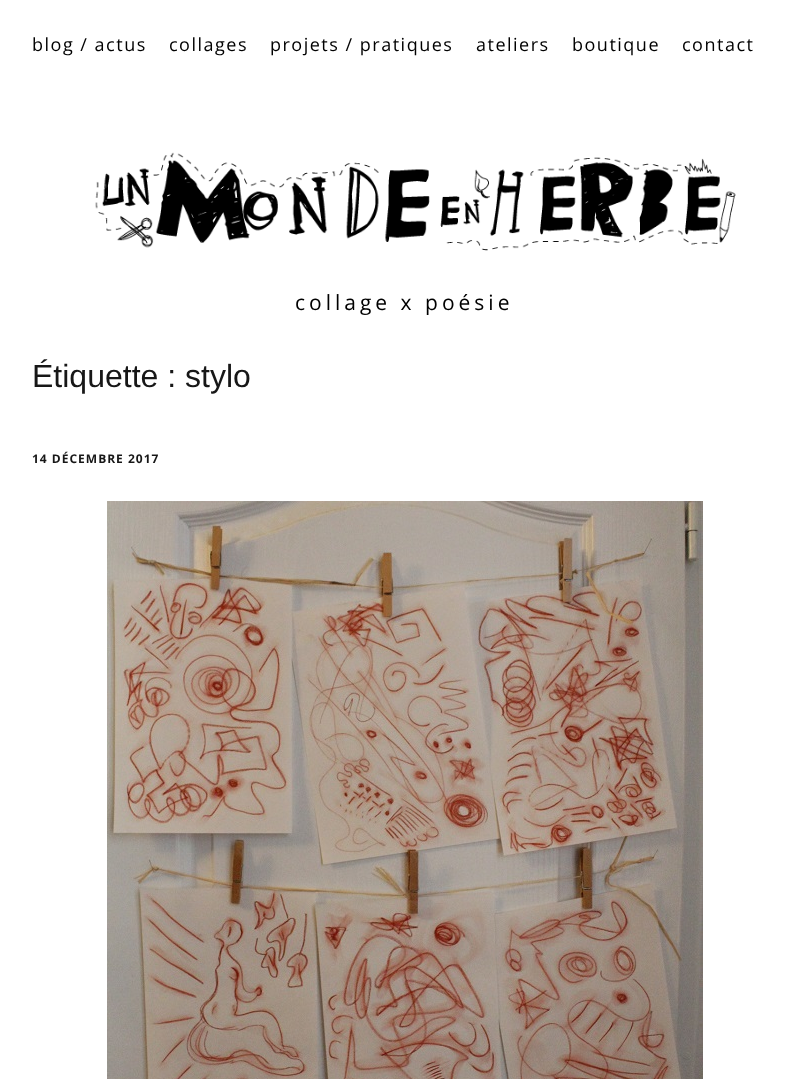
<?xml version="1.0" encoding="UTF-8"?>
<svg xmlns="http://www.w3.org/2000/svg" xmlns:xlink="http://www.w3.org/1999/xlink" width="809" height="1079">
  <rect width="100%" height="100%" fill="#ffffff" />
  <image x="95" y="152" width="641" height="99" xlink:href="image1.png" />
  <image x="107" y="501" width="596" height="578" xlink:href="image2.png" />
  <text x="32" y="51" style="font-family: Open Sans; font-size: 18px; letter-spacing: 1.5px; fill: #000000">blog / actus</text>
  <text x="169" y="51" style="font-family: Open Sans; font-size: 18px; letter-spacing: 1.5px; fill: #000000">collages</text>
  <text x="270" y="51" style="font-family: Open Sans; font-size: 18px; letter-spacing: 1.5px; fill: #000000">projets / pratiques</text>
  <text x="476" y="51" style="font-family: Open Sans; font-size: 18px; letter-spacing: 1.5px; fill: #000000">ateliers</text>
  <text x="572" y="51" style="font-family: Open Sans; font-size: 18px; letter-spacing: 1.5px; fill: #000000">boutique</text>
  <text x="682" y="51" style="font-family: Open Sans; font-size: 18px; letter-spacing: 1.5px; fill: #000000">contact</text>
  <text x="295" y="310" style="font-family: Open Sans; font-size: 21px; letter-spacing: 4px; fill: #000000">collage x poésie</text>
  <text x="32" y="387" style="font-family: Liberation Sans; font-size: 32px; fill: #171717">Étiquette : stylo</text>
  <text x="32" y="463" style="font-family: Open Sans; font-size: 12px; font-weight: bold; letter-spacing: 1px; fill: #171717">14 DÉCEMBRE 2017</text>
</svg>
